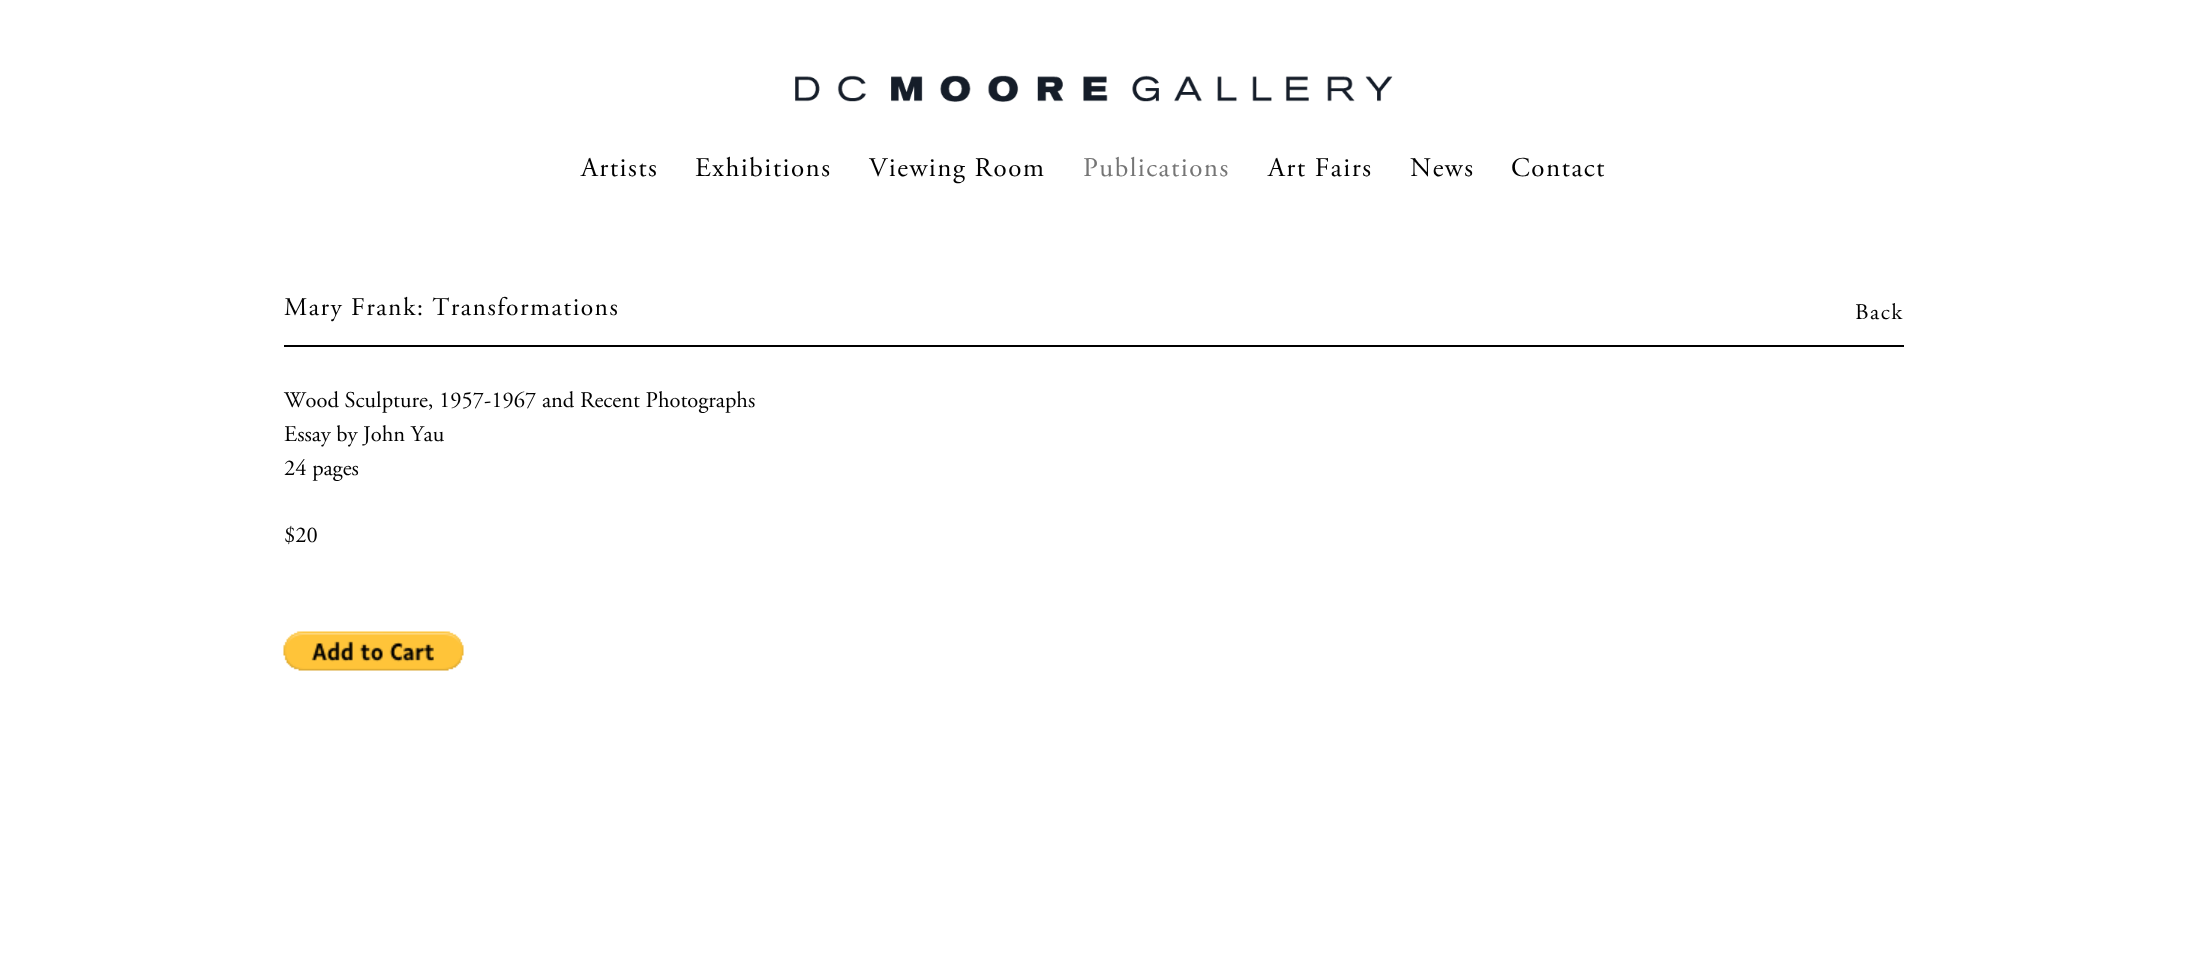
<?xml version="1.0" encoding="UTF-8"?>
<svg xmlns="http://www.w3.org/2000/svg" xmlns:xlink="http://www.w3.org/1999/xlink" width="2187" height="971">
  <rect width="100%" height="100%" fill="#ffffff" />
  <image x="795" y="75" width="598" height="27" xlink:href="image1.png" />
  <rect x="284" y="345" width="1620" height="2" fill="#000000" />
  <image x="283" y="631" width="181" height="40" xlink:href="image2.png" />
  <text x="581" y="176" style="font-family: 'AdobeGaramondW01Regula'; font-size: 27px; letter-spacing: 1.5px; fill: #000000">Artists</text>
  <text x="695" y="176" style="font-family: 'AdobeGaramondW01Regula'; font-size: 27px; letter-spacing: 1.5px; fill: #000000">Exhibitions</text>
  <text x="869" y="176" style="font-family: 'AdobeGaramondW01Regula'; font-size: 27px; letter-spacing: 1.5px; fill: #000000">Viewing Room</text>
  <text x="1083" y="176" style="font-family: 'AdobeGaramondW01Regula'; font-size: 27px; letter-spacing: 1.5px; fill: #757575">Publications</text>
  <text x="1268" y="176" style="font-family: 'AdobeGaramondW01Regula'; font-size: 27px; letter-spacing: 1.5px; fill: #000000">Art Fairs</text>
  <text x="1410" y="176" style="font-family: 'AdobeGaramondW01Regula'; font-size: 27px; letter-spacing: 1.5px; fill: #000000">News</text>
  <text x="1511" y="176" style="font-family: 'AdobeGaramondW01Regula'; font-size: 27px; letter-spacing: 1.5px; fill: #000000">Contact</text>
  <text x="284" y="315" style="font-family: 'AdobeGaramondW01Regula'; font-size: 25.5px; letter-spacing: 1.5px; fill: #000000">Mary Frank: Transformations</text>
  <text x="1855" y="319" style="font-family: 'AdobeGaramondW01Regula'; font-size: 22.5px; letter-spacing: 1.5px; fill: #000000">Back</text>
  <text x="284" y="407" style="font-family: 'AdobeGaramondW01Regula'; font-size: 22.5px; fill: #000000">Wood Sculpture, 1957-1967 and Recent Photographs</text>
  <text x="284" y="441" style="font-family: 'AdobeGaramondW01Regula'; font-size: 22.5px; fill: #000000">Essay by John Yau</text>
  <text x="284" y="475" style="font-family: 'AdobeGaramondW01Regula'; font-size: 22.5px; fill: #000000">24 pages</text>
  <text x="284" y="542" style="font-family: 'AdobeGaramondW01Regula'; font-size: 22.5px; fill: #000000">$20</text>
</svg>
